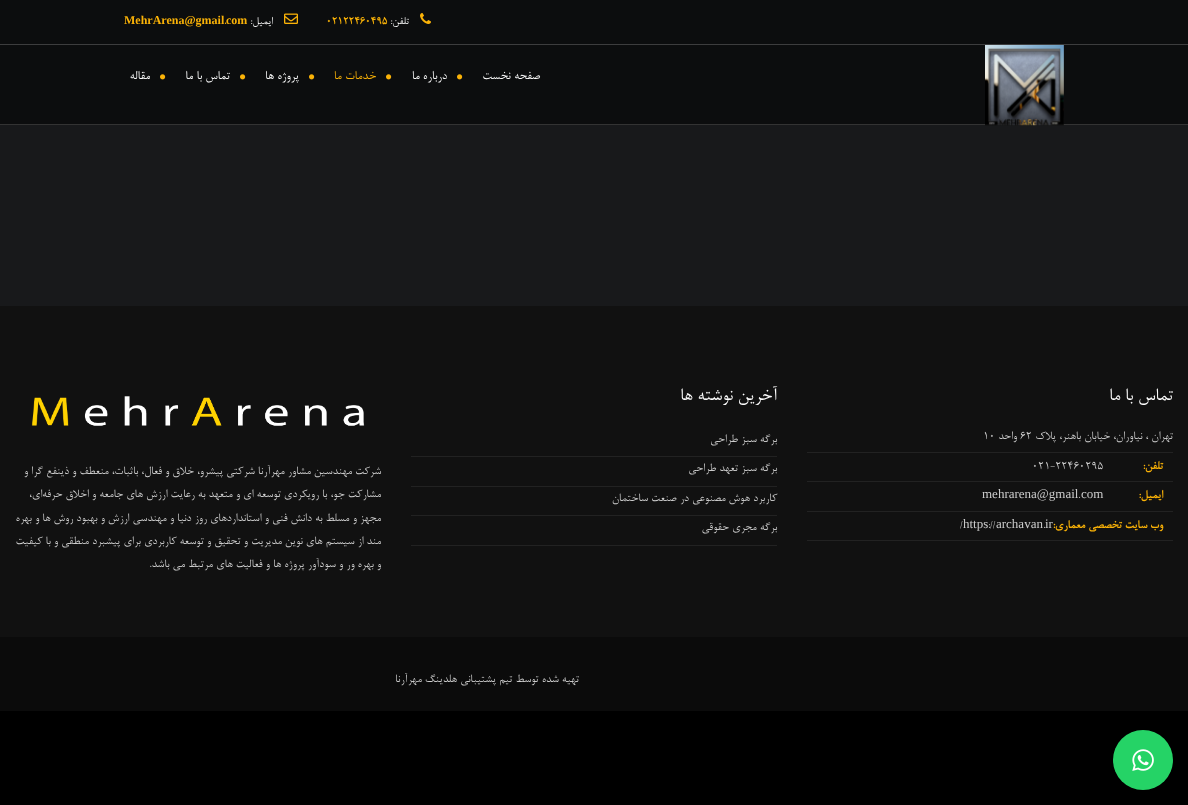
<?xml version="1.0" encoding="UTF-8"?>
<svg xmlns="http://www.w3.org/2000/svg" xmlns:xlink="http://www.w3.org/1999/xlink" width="1188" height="805">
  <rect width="100%" height="100%" fill="#000000" />
  <rect width="1188" height="124" fill="#0c0d0e" />
  <rect y="124" width="1188" height="1" fill="#333333" />
  <rect y="44" width="1188" height="1" fill="#3d3d3e" />
  <image x="420" y="13" width="11" height="11" xlink:href="image1.png" />
  <image x="284" y="13" width="14" height="11" xlink:href="image2.png" />
  <rect y="125" width="1188" height="181" fill="#18191b" />
  <image x="985" y="45" width="79" height="81" xlink:href="image3.png" />
  <image x="457" y="74" width="6" height="6" xlink:href="image4.png" />
  <image x="386" y="74" width="6" height="6" xlink:href="image4.png" />
  <image x="309" y="74" width="6" height="6" xlink:href="image4.png" />
  <image x="240" y="74" width="6" height="6" xlink:href="image4.png" />
  <image x="160" y="74" width="6" height="6" xlink:href="image4.png" />
  <rect y="306" width="1188" height="331" fill="#111111" />
  <rect x="807" y="452" width="366" height="1" fill="#222222" />
  <rect x="807" y="481" width="366" height="1" fill="#222222" />
  <rect x="807" y="511" width="366" height="1" fill="#222222" />
  <rect x="807" y="540" width="366" height="1" fill="#222222" />
  <rect x="411" y="456" width="366" height="1" fill="#222222" />
  <rect x="411" y="486" width="366" height="1" fill="#222222" />
  <rect x="411" y="515" width="366" height="1" fill="#222222" />
  <rect x="411" y="545" width="366" height="1" fill="#222222" />
  <image x="31" y="396" width="334" height="30" xlink:href="image5.png" />
  <rect y="637" width="1188" height="74" fill="#0b0b0b" />
  <circle cx="1143" cy="760" r="30" fill="#25d366" />
  <image x="1132" y="749" width="22" height="22" xlink:href="image6.png" />
  <text x="409" y="24" style="font-family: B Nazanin; font-size: 12px; direction: rtl; fill: #ffffff">تلفن:</text>
  <text x="326" y="24" style="font-family: B Nazanin; font-size: 12px; font-weight: bold; fill: #fab207">02122460495</text>
  <text x="273" y="24" style="font-family: B Nazanin; font-size: 12px; direction: rtl; fill: #ffffff">ایمیل:</text>
  <text x="124" y="24" style="font-family: Liberation Serif; font-size: 12px; font-weight: bold; fill: #fab207">MehrArena@gmail</text>
  <text x="224" y="24" style="font-family: B Nazanin; font-size: 12px; font-weight: bold; fill: #fab207">.</text>
  <text x="226" y="24" style="font-family: Liberation Serif; font-size: 12px; font-weight: bold; fill: #fab207">com</text>
  <text x="540" y="79" style="font-family: B Nazanin; font-size: 14px; direction: rtl; fill: #ffffff">صفحه نخست</text>
  <text x="447" y="79" style="font-family: B Nazanin; font-size: 14px; direction: rtl; fill: #ffffff">درباره ما</text>
  <text x="376" y="79" style="font-family: B Nazanin; font-size: 14px; direction: rtl; fill: #fab207">خدمات ما</text>
  <text x="299" y="79" style="font-family: B Nazanin; font-size: 14px; direction: rtl; fill: #ffffff">پروژه ها</text>
  <text x="230" y="79" style="font-family: B Nazanin; font-size: 14px; direction: rtl; fill: #ffffff">تماس با ما</text>
  <text x="150" y="79" style="font-family: B Nazanin; font-size: 14px; direction: rtl; fill: #ffffff">مقاله</text>
  <text x="1173" y="400" style="font-family: B Nazanin; font-size: 20px; direction: rtl; fill: #ffffff">تماس با ما</text>
  <text x="1173" y="439" style="font-family: B Nazanin; font-size: 13px; direction: rtl; fill: #cccccc">تهران ، نیاوران، خیابان باهنر، پلاک</text>
  <text x="1020" y="439" style="font-family: B Nazanin; font-size: 13px; fill: #cccccc">62</text>
  <text x="1017" y="439" style="font-family: B Nazanin; font-size: 13px; direction: rtl; fill: #cccccc">واحد</text>
  <text x="983" y="439" style="font-family: B Nazanin; font-size: 13px; fill: #cccccc">10</text>
  <text x="1163" y="469" style="font-family: B Nazanin; font-size: 13px; font-weight: bold; direction: rtl; fill: #fab207">تلفن:</text>
  <text x="1032" y="469" style="font-family: B Nazanin; font-size: 13px; fill: #cccccc">021-22460295</text>
  <text x="1163" y="498" style="font-family: B Nazanin; font-size: 13px; font-weight: bold; direction: rtl; fill: #fab207">ایمیل:</text>
  <text x="1081" y="498" style="font-family: Liberation Serif; font-size: 13px; fill: #cccccc">com</text>
  <text x="1078" y="498" style="font-family: B Nazanin; font-size: 13px; fill: #cccccc">.</text>
  <text x="982" y="498" style="font-family: Liberation Serif; font-size: 13px; fill: #cccccc">mehrarena@gmail</text>
  <text x="1163" y="528" style="font-family: B Nazanin; font-size: 13px; font-weight: bold; direction: rtl; fill: #fab207">وب</text>
  <text x="1147" y="528" style="font-family: B Nazanin; font-size: 13px; font-weight: bold; direction: rtl; fill: #fab207">سایت تخصصی معماری:</text>
  <text x="996" y="528" style="font-family: Liberation Serif; font-size: 13px; fill: #cccccc">archavan</text>
  <text x="988" y="528" style="font-family: B Nazanin; font-size: 13px; fill: #cccccc">://</text>
  <text x="960" y="528" style="font-family: B Nazanin; font-size: 13px; fill: #cccccc">/</text>
  <text x="963" y="528" style="font-family: Liberation Serif; font-size: 13px; fill: #cccccc">https</text>
  <text x="1043" y="528" style="font-family: B Nazanin; font-size: 13px; fill: #cccccc">.</text>
  <text x="1045" y="528" style="font-family: Liberation Serif; font-size: 13px; fill: #cccccc">ir</text>
  <text x="777" y="400" style="font-family: B Nazanin; font-size: 20px; direction: rtl; fill: #ffffff">آخرین نوشته ها</text>
  <text x="777" y="442" style="font-family: B Nazanin; font-size: 13px; direction: rtl; fill: #cccccc">برگه سبز طراحی</text>
  <text x="777" y="471" style="font-family: B Nazanin; font-size: 13px; direction: rtl; fill: #cccccc">برگه سبز تعهد طراحی</text>
  <text x="777" y="501" style="font-family: B Nazanin; font-size: 13px; direction: rtl; fill: #cccccc">کاربرد هوش مصنوعی در صنعت ساختمان</text>
  <text x="777" y="530" style="font-family: B Nazanin; font-size: 13px; direction: rtl; fill: #cccccc">برگه مجری حقوقی</text>
  <text x="381" y="474" style="font-family: B Nazanin; font-size: 13px; direction: rtl; fill: #cccccc">شرکت مهندسين مشاور مهرآرنا شرکتي پيشرو، خلاق و فعال، باثبات، منعطف و ذينفع گرا و</text>
  <text x="381" y="497" style="font-family: B Nazanin; font-size: 13px; direction: rtl; fill: #cccccc">مشارکت جو، با رويکردي توسعه اي و متعهد به رعايت ارزش هاي جامعه و اخلاق حرفه‌اي،</text>
  <text x="381" y="521" style="font-family: B Nazanin; font-size: 13px; direction: rtl; fill: #cccccc">مجهز و مسلط به دانش فني و استانداردهاي روز دنيا و مهندسي ارزش و بهبود روش ها و بهره‌</text>
  <text x="381" y="544" style="font-family: B Nazanin; font-size: 13px; direction: rtl; fill: #cccccc">مند از سيستم هاي نوين مديريت و تحقيق و توسعه کاربردي براي پيشبرد منطقي و با کيفيت</text>
  <text x="381" y="567" style="font-family: B Nazanin; font-size: 13px; direction: rtl; fill: #cccccc">و بهره‌ ور و سودآور پروژه ها و فعاليت هاي مرتبط می باشد.</text>
  <text x="579" y="682" style="font-family: B Nazanin; font-size: 13px; direction: rtl; fill: #cccccc">تهیه شده توسط تیم پشتیبانی هلدینگ مهرآرنا</text>
</svg>
